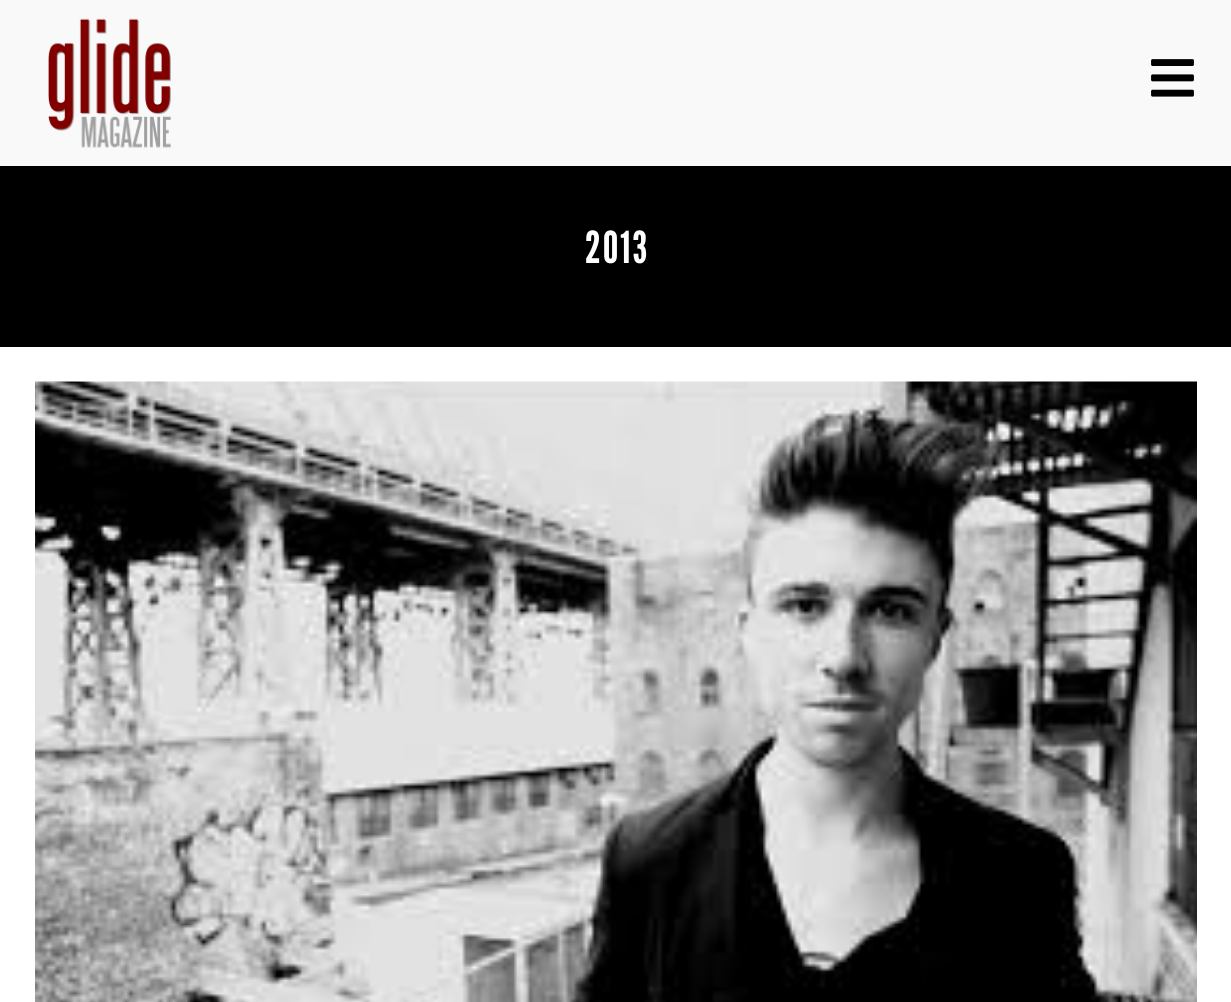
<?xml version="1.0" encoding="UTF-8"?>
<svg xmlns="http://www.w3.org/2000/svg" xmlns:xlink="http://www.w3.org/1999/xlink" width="1231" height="1002">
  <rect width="100%" height="100%" fill="#ffffff" />
  <rect width="1231" height="166" fill="#f9f9f9" />
  <image x="48" y="18" width="123" height="130" xlink:href="image1.png" />
  <image x="1151" y="59" width="43" height="38" xlink:href="image2.png" />
  <rect y="166" width="1231" height="181" fill="#000000" />
  <image x="35" y="381" width="1162" height="621" xlink:href="image3.png" />
  <text x="585" y="263" style="font-family: League Gothic; font-size: 44px; letter-spacing: 2px; fill: #ffffff">2013</text>
</svg>
